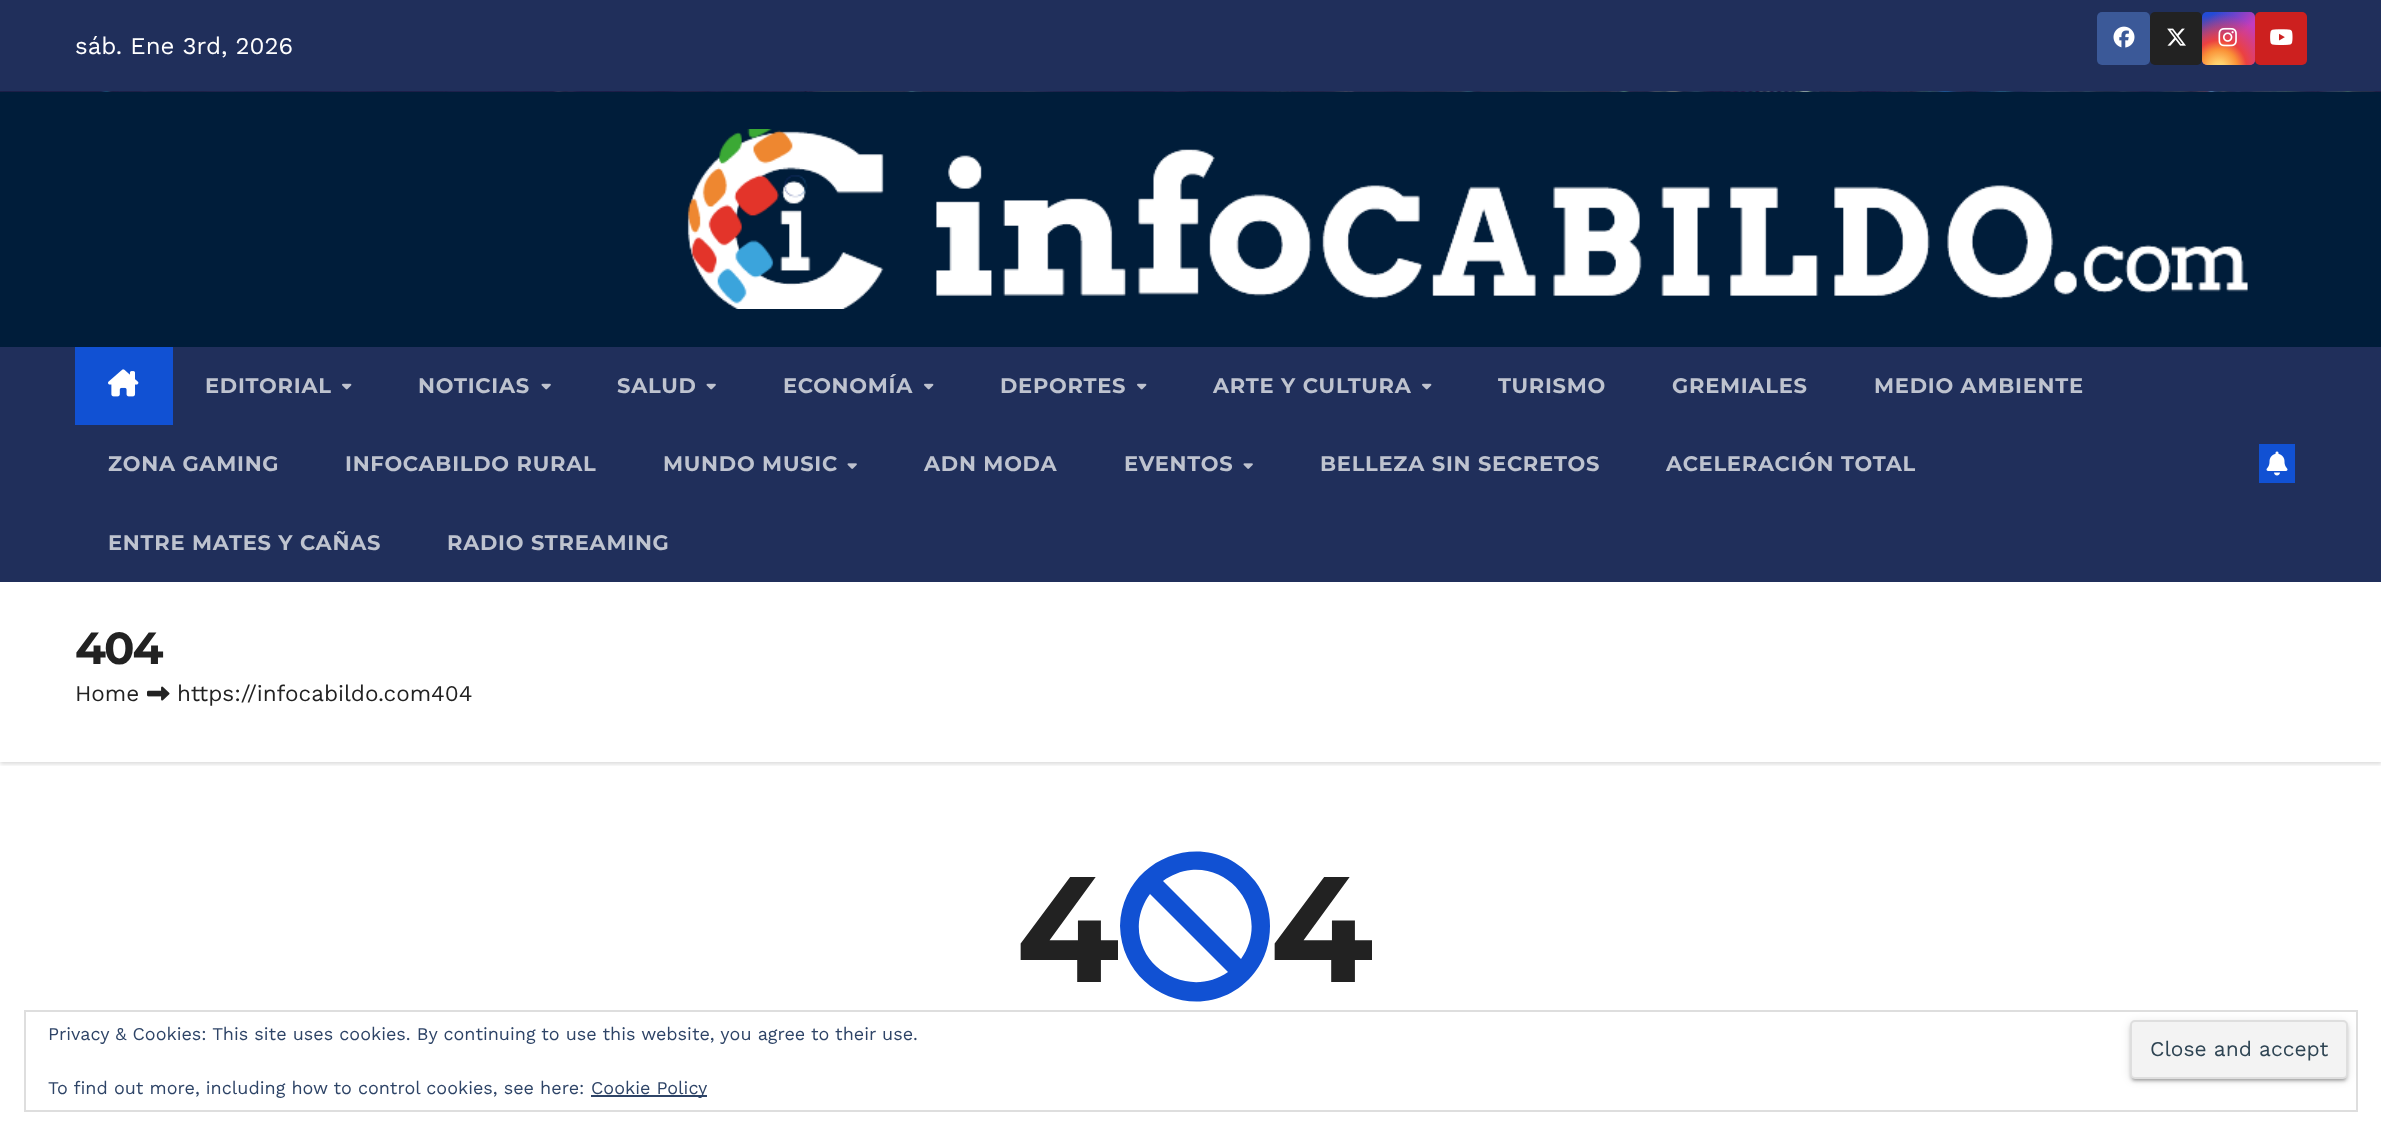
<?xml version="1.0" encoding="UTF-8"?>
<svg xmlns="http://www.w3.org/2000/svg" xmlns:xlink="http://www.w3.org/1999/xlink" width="2381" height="1135">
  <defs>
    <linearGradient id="g1" gradientUnits="userSpaceOnUse" x1="2202" y1="12" x2="2255" y2="65"><stop offset="0.12" stop-color="#234bd7" /><stop offset="0.58" stop-color="#c33cbe" /></linearGradient>
    <radialGradient id="g2" gradientUnits="userSpaceOnUse" cx="2219" cy="68" r="66"><stop offset="0" stop-color="#ffe17d" /><stop offset="0.1" stop-color="#ffcd69" /><stop offset="0.28" stop-color="#fa9137" /><stop offset="0.42" stop-color="#eb4141" /><stop offset="0.82" stop-color="#eb4141" stop-opacity="0" /></radialGradient>
    <clipPath id="clip1"><rect x="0" y="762" width="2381" height="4" /></clipPath>
  </defs>
  <rect width="100%" height="100%" fill="#ffffff" />
  <rect width="2381" height="92" fill="#202f5b" />
  <rect x="2097" y="12" width="53" height="53" rx="5" fill="#3b5998" />
  <image x="2113" y="26" width="22" height="22" xlink:href="image1.png" />
  <rect x="2150" y="12" width="52" height="53" rx="5" fill="#222222" />
  <image x="2167" y="28" width="19" height="18" xlink:href="image2.png" />
  <rect x="2202" y="12" width="53" height="53" rx="5" fill="url(#g1)" />
  <rect x="2202" y="12" width="53" height="53" rx="5" fill="url(#g2)" />
  <image x="2218" y="27" width="19" height="20" xlink:href="image3.png" />
  <rect x="2255" y="12" width="52" height="53" rx="5" fill="#cd201f" />
  <image x="2270" y="29" width="23" height="16" xlink:href="image4.png" />
  <image x="0" y="91" width="2381" height="1" xlink:href="image5.png" />
  <rect y="92" width="2381" height="255" fill="#001d3a" />
  <image x="687" y="129" width="1561" height="180" xlink:href="image6.png" />
  <g clip-path="url(#clip1)">
    <rect y="584" width="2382" height="180" fill="#000000" fill-opacity="0.15" filter="blur(2px)" />
  </g>
  <rect y="347" width="2381" height="235" fill="#202f5b" />
  <rect x="75" y="347" width="98" height="78" fill="#1151d3" />
  <image x="108" y="369" width="31" height="28" xlink:href="image7.png" />
  <image x="342" y="383" width="10" height="7" xlink:href="image8.png" />
  <image x="541" y="383" width="10" height="7" xlink:href="image9.png" />
  <image x="706" y="383" width="10" height="7" xlink:href="image9.png" />
  <image x="924" y="383" width="10" height="7" xlink:href="image8.png" />
  <image x="1137" y="383" width="10" height="7" xlink:href="image8.png" />
  <image x="1422" y="383" width="10" height="7" xlink:href="image8.png" />
  <image x="847" y="463" width="10" height="6" xlink:href="image10.png" />
  <image x="1243" y="463" width="10" height="6" xlink:href="image10.png" />
  <rect x="2259" y="444" width="36" height="39" fill="#1151d3" />
  <image x="2266" y="451" width="22" height="25" xlink:href="image11.png" />
  <image x="147" y="686" width="23" height="15" xlink:href="image12.png" />
  <path d="M 1228 972 l -78 -78 c -6 8 -10 18 -11 28 c -4 47 51 77 89 50 z m 13 -13 c 28 -39 -3 -93 -50 -89 c -10 1 -20 5 -28 11 z m -121 -33 c 2 -71 91 -102 135 -45 c 10 13 15 29 15 45 c 0 17 -5 33 -15 46 c -44 57 -133 26 -135 -46 z" fill="#1151d3" />
  <rect x="25" y="1011" width="2332" height="100" fill="none" stroke="#dedede" stroke-width="2" />
  <rect x="2130" y="1022" width="218" height="58" rx="5" fill="#000000" fill-opacity="0.12" filter="blur(4px)" />
  <rect x="2133" y="1028" width="212" height="52" rx="1.5" fill="#000000" fill-opacity="0.2" filter="blur(1px)" />
  <rect x="2130" y="1023" width="218" height="59" rx="5" fill="#000000" fill-opacity="0.14" filter="blur(1.5px)" />
  <rect x="2131" y="1021" width="216" height="57" rx="4" fill="#f3f3f3" stroke="#dedede" stroke-width="2" />
  <rect x="591" y="1095" width="116" height="2" fill="#2e4467" />
  <text x="75" y="54" style="font-family: Work Sans; font-size: 24px; fill: #ffffff">sáb. Ene 3rd, 2026</text>
  <text x="205" y="393" style="font-family: Montserrat; font-size: 21px; font-weight: bold; letter-spacing: 0.75px; fill: #bec3cf">EDITORIAL</text>
  <text x="418" y="393" style="font-family: Montserrat; font-size: 21px; font-weight: bold; letter-spacing: 0.75px; fill: #bec3cf">NOTICIAS</text>
  <text x="617" y="393" style="font-family: Montserrat; font-size: 21px; font-weight: bold; letter-spacing: 0.75px; fill: #bec3cf">SALUD</text>
  <text x="783" y="393" style="font-family: Montserrat; font-size: 21px; font-weight: bold; letter-spacing: 0.75px; fill: #bec3cf">ECONOMÍA</text>
  <text x="1000" y="393" style="font-family: Montserrat; font-size: 21px; font-weight: bold; letter-spacing: 0.75px; fill: #bec3cf">DEPORTES</text>
  <text x="1213" y="393" style="font-family: Montserrat; font-size: 21px; font-weight: bold; letter-spacing: 0.75px; fill: #bec3cf">ARTE Y CULTURA</text>
  <text x="1498" y="393" style="font-family: Montserrat; font-size: 21px; font-weight: bold; letter-spacing: 0.75px; fill: #bec3cf">TURISMO</text>
  <text x="1672" y="393" style="font-family: Montserrat; font-size: 21px; font-weight: bold; letter-spacing: 0.75px; fill: #bec3cf">GREMIALES</text>
  <text x="1874" y="393" style="font-family: Montserrat; font-size: 21px; font-weight: bold; letter-spacing: 0.75px; fill: #bec3cf">MEDIO AMBIENTE</text>
  <text x="108" y="471" style="font-family: Montserrat; font-size: 21px; font-weight: bold; letter-spacing: 0.75px; fill: #bec3cf">ZONA GAMING</text>
  <text x="345" y="471" style="font-family: Montserrat; font-size: 21px; font-weight: bold; letter-spacing: 0.75px; fill: #bec3cf">INFOCABILDO RURAL</text>
  <text x="663" y="471" style="font-family: Montserrat; font-size: 21px; font-weight: bold; letter-spacing: 0.75px; fill: #bec3cf">MUNDO MUSIC</text>
  <text x="924" y="471" style="font-family: Montserrat; font-size: 21px; font-weight: bold; letter-spacing: 0.75px; fill: #bec3cf">ADN MODA</text>
  <text x="1124" y="471" style="font-family: Montserrat; font-size: 21px; font-weight: bold; letter-spacing: 0.75px; fill: #bec3cf">EVENTOS</text>
  <text x="1320" y="471" style="font-family: Montserrat; font-size: 21px; font-weight: bold; letter-spacing: 0.75px; fill: #bec3cf">BELLEZA SIN SECRETOS</text>
  <text x="1666" y="471" style="font-family: Montserrat; font-size: 21px; font-weight: bold; letter-spacing: 0.75px; fill: #bec3cf">ACELERACIÓN TOTAL</text>
  <text x="108" y="550" style="font-family: Montserrat; font-size: 21px; font-weight: bold; letter-spacing: 0.75px; fill: #bec3cf">ENTRE MATES Y CAÑAS</text>
  <text x="447" y="550" style="font-family: Montserrat; font-size: 21px; font-weight: bold; letter-spacing: 0.75px; fill: #bec3cf">RADIO STREAMING</text>
  <text x="75" y="664" style="font-family: Montserrat; font-size: 45px; font-weight: bold; letter-spacing: -2px; fill: #222222">404</text>
  <text x="75" y="701" style="font-family: Work Sans; font-size: 22.5px; fill: #222222">Home</text>
  <text x="177" y="701" style="font-family: Work Sans; font-size: 22.5px; fill: #222222">https://infocabildo.com404</text>
  <text x="1016" y="982" style="font-family: Montserrat; font-size: 150px; font-weight: bold; letter-spacing: -8px; fill: #222222">4</text>
  <text x="1270" y="982" style="font-family: Montserrat; font-size: 150px; font-weight: bold; letter-spacing: -8px; fill: #222222">4</text>
  <text x="48" y="1040" style="font-family: Work Sans; font-size: 18px; fill: #2e4467">Privacy &amp; Cookies: This site uses cookies. By continuing to use this website, you agree to their use.</text>
  <text x="2150" y="1056" style="font-family: Work Sans; font-size: 21px; fill: #2e4453">Close and accept</text>
  <text x="48" y="1094" style="font-family: Work Sans; font-size: 18px; fill: #2e4467">To find out more, including how to control cookies, see here:</text>
  <text x="591" y="1094" style="font-family: Work Sans; font-size: 18px; fill: #2e4467">Cookie Policy</text>
</svg>
